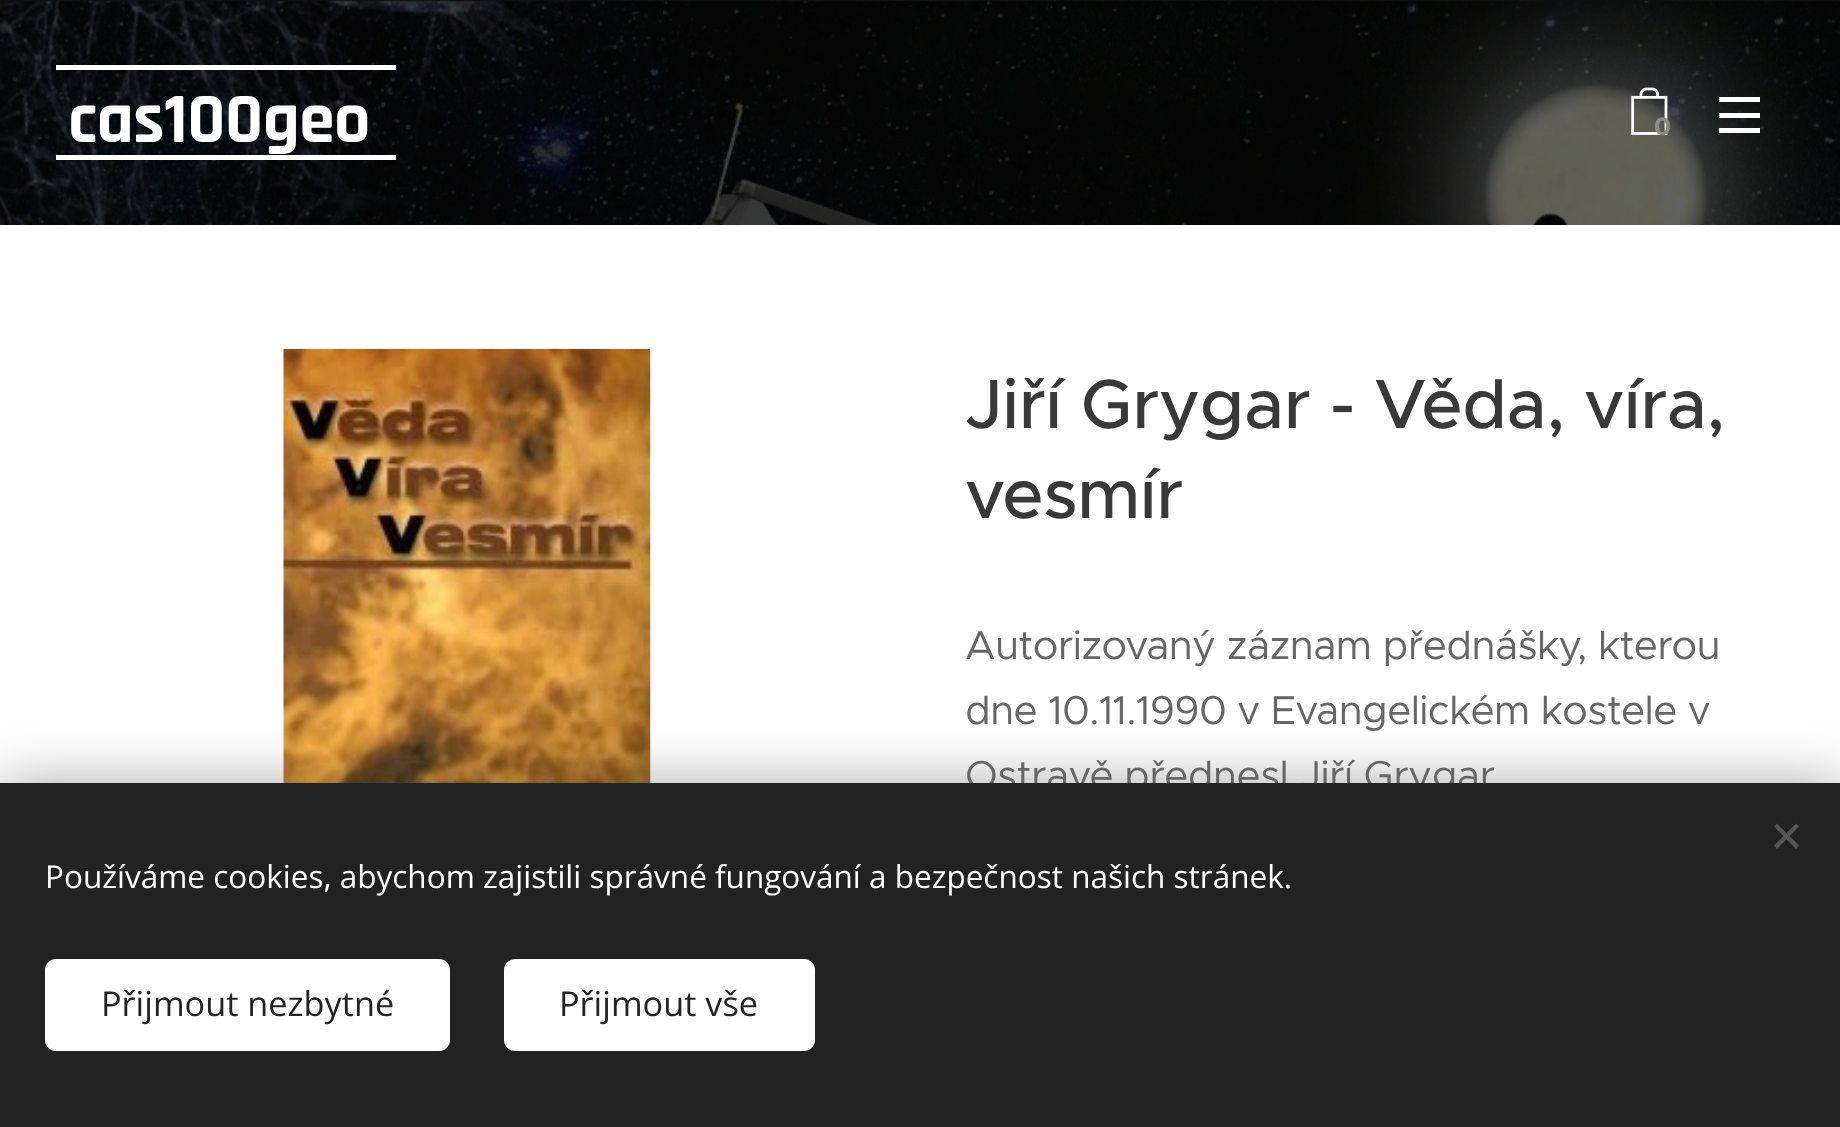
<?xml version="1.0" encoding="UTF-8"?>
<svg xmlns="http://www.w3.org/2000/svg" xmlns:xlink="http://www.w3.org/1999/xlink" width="1840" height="1127">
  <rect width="100%" height="100%" fill="#ffffff" />
  <rect width="1840" height="2" fill="#101010" />
  <image x="0" y="0" width="1840" height="225" xlink:href="image1.png" />
  <rect x="56" y="65" width="340" height="5" fill="#ffffff" />
  <rect x="56" y="155" width="340" height="5" fill="#ffffff" />
  <image x="1631" y="87" width="37" height="48" xlink:href="image2.png" />
  <rect x="1719" y="113" width="41" height="5" fill="#ffffff" />
  <rect x="1719" y="97" width="41" height="5" fill="#ffffff" />
  <rect x="1719" y="128" width="41" height="5" fill="#ffffff" />
  <image x="283" y="348" width="368" height="435" xlink:href="image3.png" />
  <rect y="783" width="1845" height="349" fill="#000000" fill-opacity="0.33" filter="blur(28px)" />
  <text x="68" y="142" style="font-family: Rajdhani; font-size: 71.5px; font-weight: bold; letter-spacing: -0.6px; fill: #ffffff">cas100geo</text>
  <text x="1654" y="135" style="font-family: Montserrat; font-size: 25px; font-weight: bold; fill: #8b8b86">0</text>
  <text x="965" y="428" style="font-family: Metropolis; font-size: 69.75px; font-weight: 500; letter-spacing: -0.6px; fill: #393939">Jiří Grygar - Věda, víra,</text>
  <text x="965" y="518" style="font-family: Metropolis; font-size: 69.75px; font-weight: 500; letter-spacing: -0.6px; fill: #393939">vesmír</text>
  <text x="965" y="659" style="font-family: Metropolis; font-size: 40.5px; letter-spacing: -0.6px; fill: #666666">Autorizovaný záznam přednášky, kterou</text>
  <text x="965" y="724" style="font-family: Metropolis; font-size: 40.5px; letter-spacing: -0.6px; fill: #666666">dne 10.11.1990 v Evangelickém kostele v</text>
  <text x="965" y="789" style="font-family: Metropolis; font-size: 40.5px; letter-spacing: -0.6px; fill: #666666">Ostravě přednesl Jiří Grygar</text>
  <rect y="783" width="1840" height="344" fill="#222222" />
  <path d="M 1774 845.5 l 22 -22 l 3 3 l -22 22.5 z" fill="#555555" />
  <path d="M 1777 823.5 l 22 22 l -3 3.5 l -22 -22.5 z" fill="#555555" />
  <text x="45" y="888" style="font-family: Open Sans; font-size: 31.5px; fill: #ffffff">Používáme cookies, abychom zajistili správné fungování a bezpečnost našich stránek.</text>
  <rect x="45" y="959" width="405" height="92" rx="11" fill="#ffffff" />
  <text x="101" y="1016" style="font-family: Open Sans; font-size: 34.25px; fill: #222222">Přijmout nezbytné</text>
  <rect x="504" y="959" width="311" height="92" rx="11" fill="#ffffff" />
  <text x="559" y="1016" style="font-family: Open Sans; font-size: 34.25px; fill: #222222">Přijmout vše</text>
</svg>
